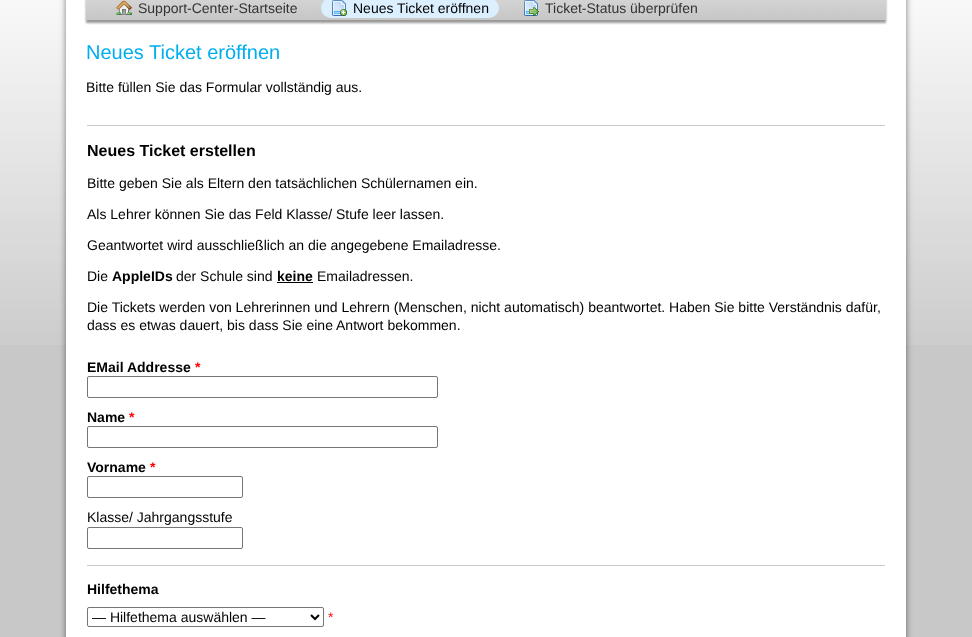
<?xml version="1.0" encoding="UTF-8"?>
<svg xmlns="http://www.w3.org/2000/svg" xmlns:xlink="http://www.w3.org/1999/xlink" width="972" height="637">
  <rect width="100%" height="100%" fill="#c8c8c8" />
  <image x="0" y="0" width="972" height="345" xlink:href="image1.png" />
  <rect x="66" y="-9" width="840" height="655" fill="#000000" fill-opacity="0.5" filter="blur(3px)" />
  <rect x="66" width="840" height="637" fill="#ffffff" />
  <rect x="86" y="-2" width="800" height="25" fill="#000000" fill-opacity="0.4" filter="blur(1px)" />
  <image x="86" y="0" width="800" height="20" xlink:href="image2.png" />
  <image x="116" y="0" width="16" height="15" xlink:href="image3.png" />
  <rect x="321" y="-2" width="178" height="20" rx="10" fill="#dbefff" />
  <image x="332" y="0" width="15" height="16" xlink:href="image4.png" />
  <image x="524" y="0" width="15" height="16" xlink:href="image5.png" />
  <rect x="87" y="125" width="798" height="1" fill="#cccccc" />
  <rect x="277" y="282" width="36" height="1" fill="#000000" />
  <rect x="87.5" y="376.5" width="350" height="21" rx="1.5" fill="none" stroke="#767676" />
  <rect x="87.5" y="426.5" width="350" height="21" rx="1.5" fill="none" stroke="#767676" />
  <rect x="87.5" y="476.5" width="155" height="21" rx="1.5" fill="none" stroke="#767676" />
  <rect x="87.5" y="527.5" width="155" height="21" rx="1.5" fill="none" stroke="#767676" />
  <rect x="87" y="565" width="798" height="1" fill="#cccccc" />
  <rect x="87.5" y="607.5" width="236" height="19" rx="1.5" fill="none" stroke="#767676" />
  <path d="M 311 615 l 4 4 l 4 -4" fill="none" stroke="#000000" stroke-width="2" />
  <text x="138" y="13" style="font-family: Liberation Sans; font-size: 14px; fill: #333333">Support-Center-Startseite</text>
  <text x="353" y="13" style="font-family: Liberation Sans; font-size: 14px; fill: #000000">Neues Ticket eröffnen</text>
  <text x="545" y="13" style="font-family: Liberation Sans; font-size: 14px; fill: #333333">Ticket-Status überprüfen</text>
  <text x="86" y="59" style="font-family: Liberation Sans; font-size: 20px; fill: #00aeef">Neues Ticket eröffnen</text>
  <text x="86" y="92" style="font-family: Liberation Sans; font-size: 14px; fill: #000000">Bitte füllen Sie das Formular vollständig aus.</text>
  <text x="87" y="156" style="font-family: Liberation Sans; font-size: 16px; font-weight: bold; fill: #000000">Neues Ticket erstellen</text>
  <text x="87" y="188" style="font-family: Liberation Sans; font-size: 14px; fill: #000000">Bitte geben Sie als Eltern den tatsächlichen Schülernamen ein.</text>
  <text x="87" y="219" style="font-family: Liberation Sans; font-size: 14px; fill: #000000">Als Lehrer können Sie das Feld Klasse/ Stufe leer lassen.</text>
  <text x="87" y="250" style="font-family: Liberation Sans; font-size: 14px; fill: #000000">Geantwortet wird ausschließlich an die angegebene Emailadresse.</text>
  <text x="87" y="281" style="font-family: Liberation Sans; font-size: 14px; fill: #000000">Die</text>
  <text x="112" y="281" style="font-family: Liberation Sans; font-size: 14px; font-weight: bold; fill: #000000">AppleIDs</text>
  <text x="176" y="281" style="font-family: Liberation Sans; font-size: 14px; fill: #000000">der Schule sind</text>
  <text x="277" y="281" style="font-family: Liberation Sans; font-size: 14px; font-weight: bold; fill: #000000">keine</text>
  <text x="317" y="281" style="font-family: Liberation Sans; font-size: 14px; fill: #000000">Emailadressen.</text>
  <text x="87" y="312" style="font-family: Liberation Sans; font-size: 14px; fill: #000000">Die Tickets werden von Lehrerinnen und Lehrern (Menschen, nicht automatisch) beantwortet. Haben Sie bitte Verständnis dafür,</text>
  <text x="87" y="330" style="font-family: Liberation Sans; font-size: 14px; fill: #000000">dass es etwas dauert, bis dass Sie eine Antwort bekommen.</text>
  <text x="87" y="372" style="font-family: Liberation Sans; font-size: 14px; font-weight: bold; fill: #000000">EMail Addresse</text>
  <text x="195" y="372" style="font-family: Liberation Sans; font-size: 14px; font-weight: bold; fill: #ff0000">*</text>
  <text x="87" y="422" style="font-family: Liberation Sans; font-size: 14px; font-weight: bold; fill: #000000">Name</text>
  <text x="129" y="422" style="font-family: Liberation Sans; font-size: 14px; font-weight: bold; fill: #ff0000">*</text>
  <text x="87" y="472" style="font-family: Liberation Sans; font-size: 14px; font-weight: bold; fill: #000000">Vorname</text>
  <text x="150" y="472" style="font-family: Liberation Sans; font-size: 14px; font-weight: bold; fill: #ff0000">*</text>
  <text x="87" y="522" style="font-family: Liberation Sans; font-size: 14px; fill: #000000">Klasse/ Jahrgangsstufe</text>
  <text x="87" y="594" style="font-family: Liberation Sans; font-size: 14px; font-weight: bold; fill: #000000">Hilfethema</text>
  <text x="92" y="622" style="font-family: Liberation Sans; font-size: 14px; fill: #000000">— Hilfethema auswählen —</text>
  <text x="328" y="622" style="font-family: Liberation Sans; font-size: 14px; fill: #ff0000">*</text>
</svg>
